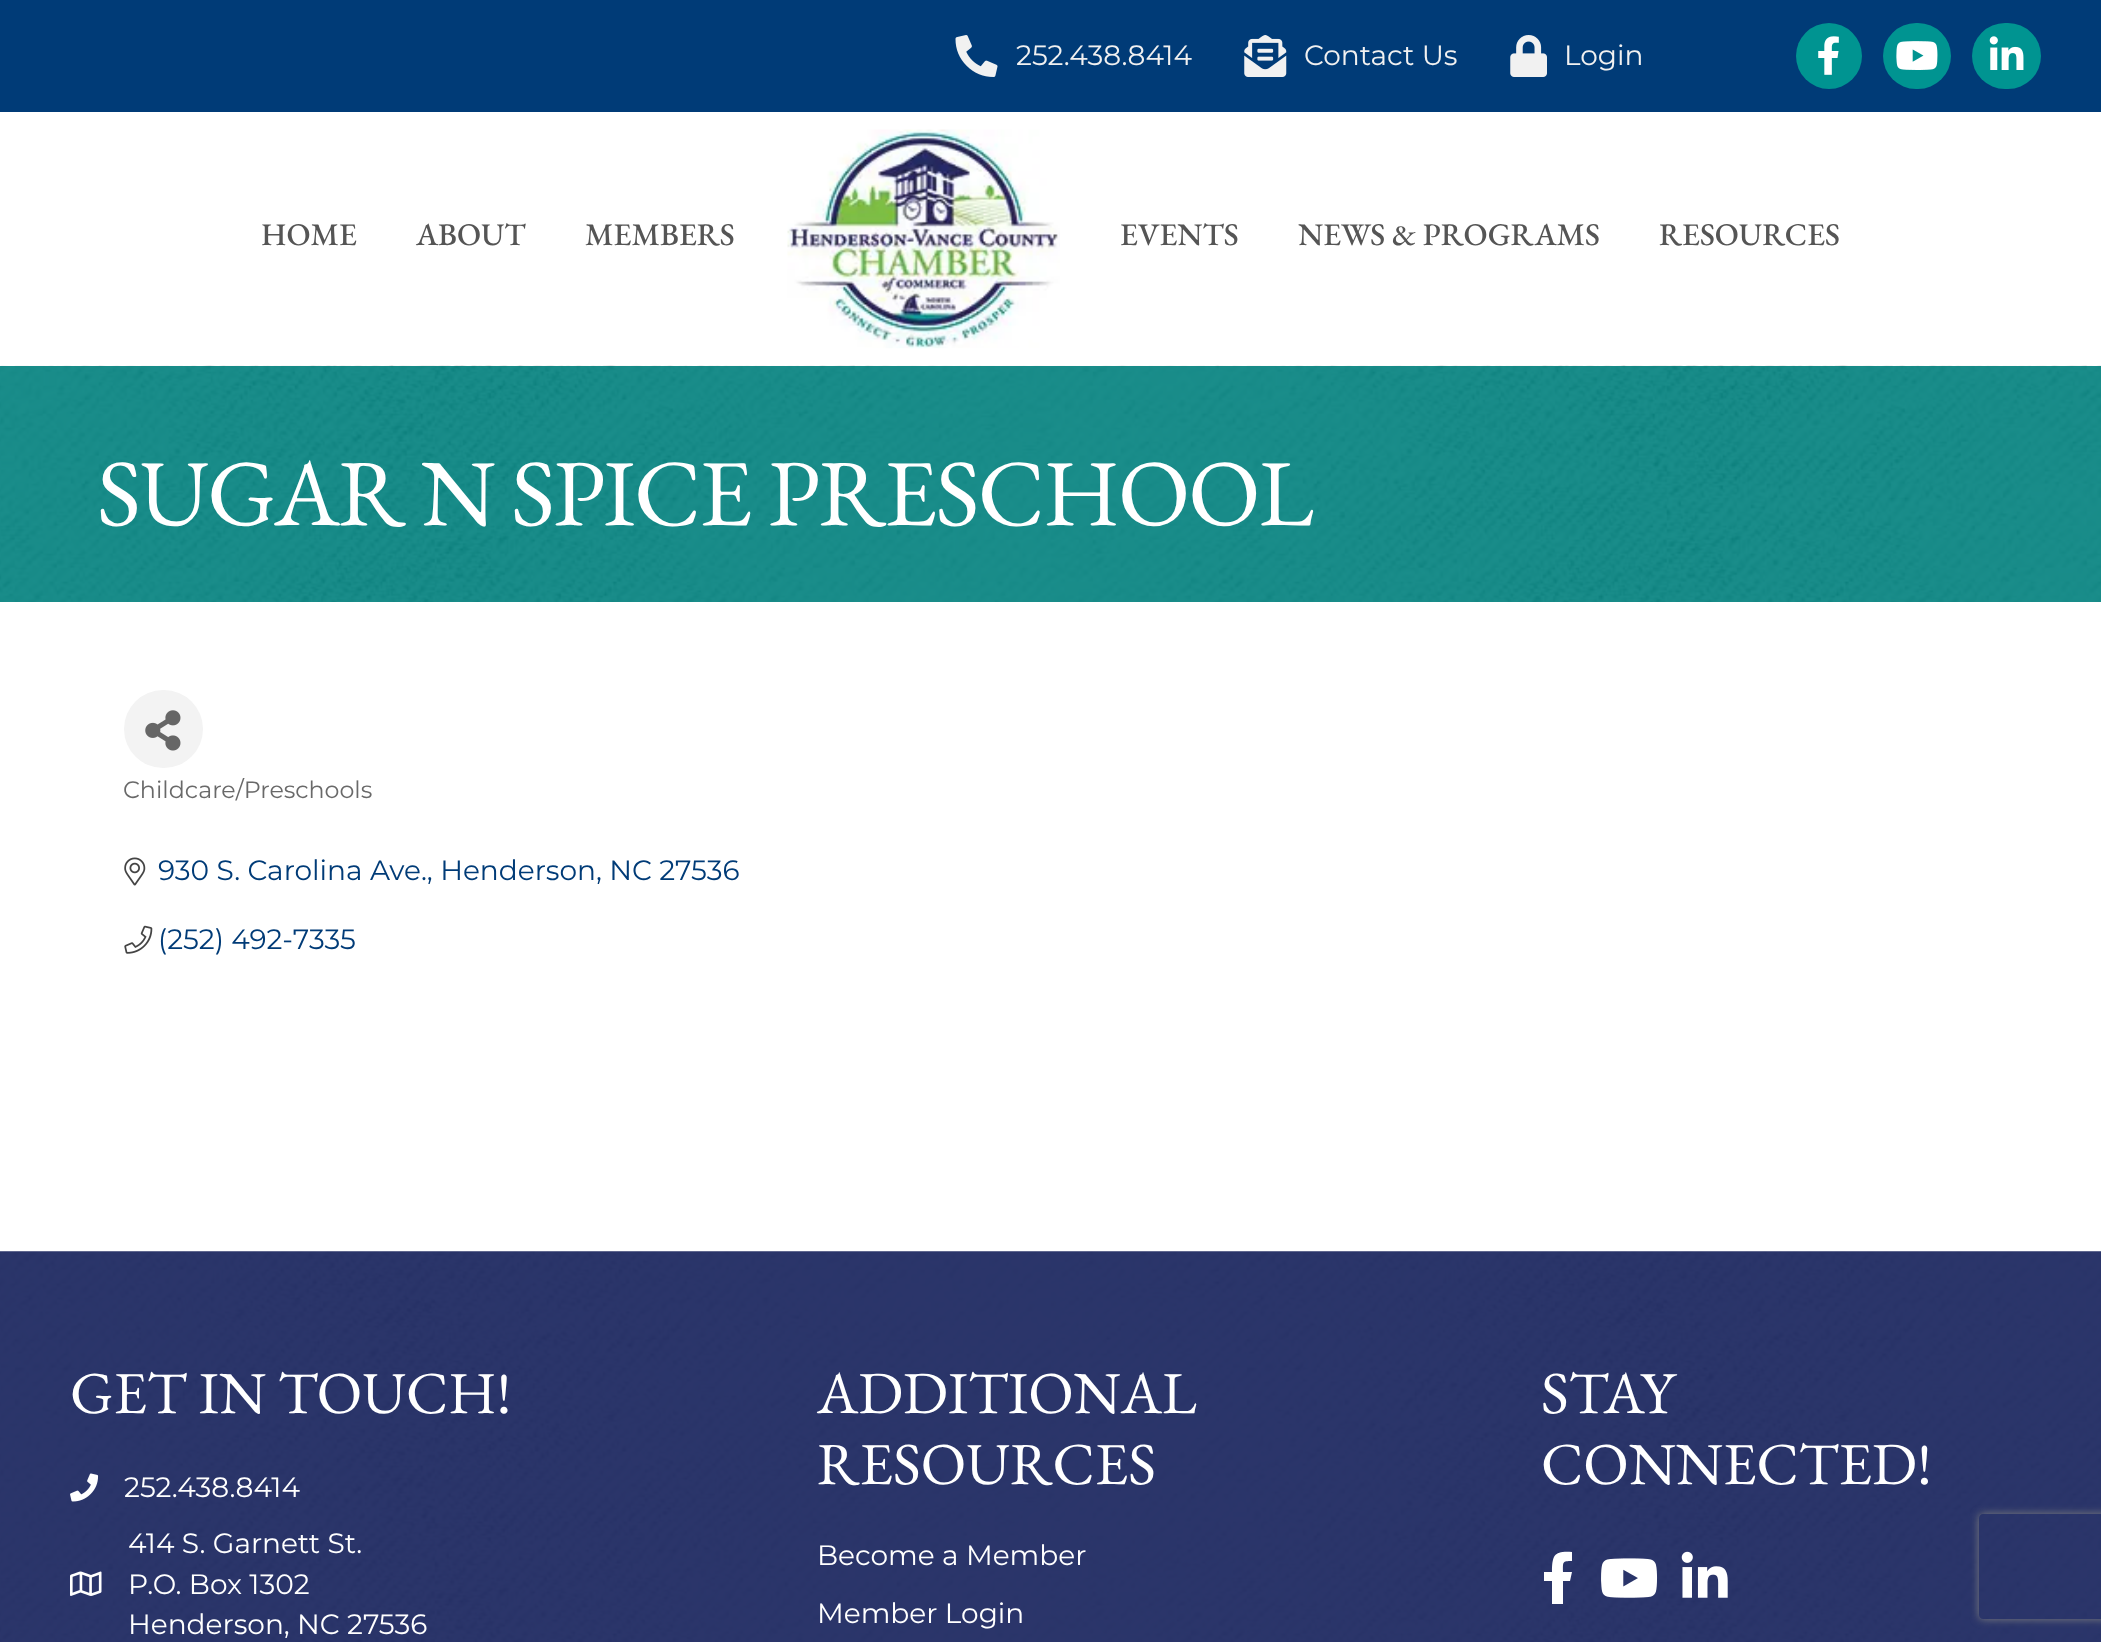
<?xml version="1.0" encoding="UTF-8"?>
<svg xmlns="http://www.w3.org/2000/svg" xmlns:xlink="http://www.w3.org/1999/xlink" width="2101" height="1642">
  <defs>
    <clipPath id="clip1"><path d="M 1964 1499 h 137 v 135 h -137 z m 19 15 h 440 c 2 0 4 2 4 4 v 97 c 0 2 -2 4 -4 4 h -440 c -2 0 -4 -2 -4 -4 v -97 c 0 -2 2 -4 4 -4 z" clip-rule="evenodd" /></clipPath>
  </defs>
  <rect width="100%" height="100%" fill="#ffffff" />
  <rect width="2101" height="112" fill="#003b77" />
  <image x="955" y="35" width="43" height="42" xlink:href="image1.png" />
  <image x="1244" y="35" width="43" height="42" xlink:href="image2.png" />
  <image x="1510" y="35" width="37" height="42" xlink:href="image3.png" />
  <circle cx="1829" cy="56" r="33" fill="#009491" />
  <image x="1818" y="36" width="21" height="39" xlink:href="image4.png" />
  <rect x="1883" y="23" width="68" height="66" rx="33" fill="#009491" />
  <image x="1896" y="41" width="42" height="29" xlink:href="image5.png" />
  <rect x="1972" y="23" width="69" height="66" rx="33" fill="#009491" />
  <image x="1989" y="36" width="35" height="34" xlink:href="image6.png" />
  <image x="787" y="129" width="273" height="220" xlink:href="image7.png" />
  <image x="0" y="365" width="2101" height="237" xlink:href="image8.png" />
  <rect x="124" y="690" width="79" height="78" rx="39" fill="#f3f3f3" />
  <image x="145" y="710" width="36" height="41" xlink:href="image9.png" />
  <image x="124" y="857" width="22" height="29" xlink:href="image10.png" />
  <image x="124" y="925" width="29" height="29" xlink:href="image11.png" />
  <image x="0" y="1251" width="2101" height="391" xlink:href="image12.png" />
  <image x="70" y="1473" width="29" height="29" xlink:href="image13.png" />
  <image x="70" y="1571" width="32" height="25" xlink:href="image14.png" />
  <path d="M 1570 1581 h -7 v 23 h -11 v -23 h -8 v -9 h 8 c 0 -18 3 -21 20 -20 v 9 c -10 0 -9 1 -9 11 h 9 z" fill="#ffffff" />
  <image x="1601" y="1558" width="57" height="40" xlink:href="image15.png" />
  <image x="1681" y="1551" width="47" height="47" xlink:href="image16.png" />
  <g clip-path="url(#clip1)">
    <rect x="1979" y="1514" width="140" height="105" rx="4" fill="#808080" filter="blur(4.5px)" />
  </g>
  <text x="1016" y="65" style="font-family: Montserrat; font-size: 28px; fill: #f1f1f1">252.438.8414</text>
  <text x="1304" y="65" style="font-family: Montserrat; font-size: 28px; fill: #f1f1f1">Contact Us</text>
  <text x="1564" y="65" style="font-family: Montserrat; font-size: 28px; fill: #f1f1f1">Login</text>
  <text x="261" y="245" style="font-family: EB Garamond; font-size: 31.5px; font-weight: 500; fill: #555555">HOME</text>
  <text x="416" y="245" style="font-family: EB Garamond; font-size: 31.5px; font-weight: 500; fill: #555555">ABOUT</text>
  <text x="585" y="245" style="font-family: EB Garamond; font-size: 31.5px; font-weight: 500; fill: #555555">MEMBERS</text>
  <text x="1120" y="245" style="font-family: EB Garamond; font-size: 31.5px; font-weight: 500; fill: #555555">EVENTS</text>
  <text x="1298" y="245" style="font-family: EB Garamond; font-size: 31.5px; font-weight: 500; fill: #555555">NEWS &amp; PROGRAMS</text>
  <text x="1659" y="245" style="font-family: EB Garamond; font-size: 31.5px; font-weight: 500; fill: #555555">RESOURCES</text>
  <text x="97" y="525" style="font-family: EB Garamond; font-size: 94.5px; letter-spacing: -1.75px; fill: #ffffff">SUGAR N SPICE PRESCHOOL</text>
  <text x="123" y="798" style="font-family: Montserrat; font-size: 23.75px; fill: #696969">Childcare/Preschools</text>
  <text x="158" y="880" style="font-family: Montserrat; font-size: 28px; fill: #003b77">930 S. Carolina Ave., Henderson, NC 27536</text>
  <text x="158" y="949" style="font-family: Montserrat; font-size: 28px; fill: #003b77">(252) 492-7335</text>
  <text x="70" y="1413" style="font-family: EB Garamond; font-size: 59.5px; fill: #ffffff">GET IN TOUCH!</text>
  <text x="124" y="1497" style="font-family: Montserrat; font-size: 28px; fill: #ffffff">252.438.8414</text>
  <text x="128" y="1553" style="font-family: Montserrat; font-size: 28px; fill: #ffffff">414 S. Garnett St.</text>
  <text x="128" y="1594" style="font-family: Montserrat; font-size: 28px; fill: #ffffff">P.O. Box 1302</text>
  <text x="128" y="1634" style="font-family: Montserrat; font-size: 28px; fill: #ffffff">Henderson, NC 27536</text>
  <text x="817" y="1413" style="font-family: EB Garamond; font-size: 59.5px; fill: #ffffff">ADDITIONAL</text>
  <text x="817" y="1484" style="font-family: EB Garamond; font-size: 59.5px; fill: #ffffff">RESOURCES</text>
  <text x="817" y="1565" style="font-family: Montserrat; font-size: 28px; fill: #ffffff">Become a Member</text>
  <text x="817" y="1623" style="font-family: Montserrat; font-size: 28px; fill: #ffffff">Member Login</text>
  <text x="1541" y="1413" style="font-family: EB Garamond; font-size: 59.5px; fill: #ffffff">STAY</text>
  <text x="1541" y="1484" style="font-family: EB Garamond; font-size: 59.5px; fill: #ffffff">CONNECTED!</text>
</svg>
